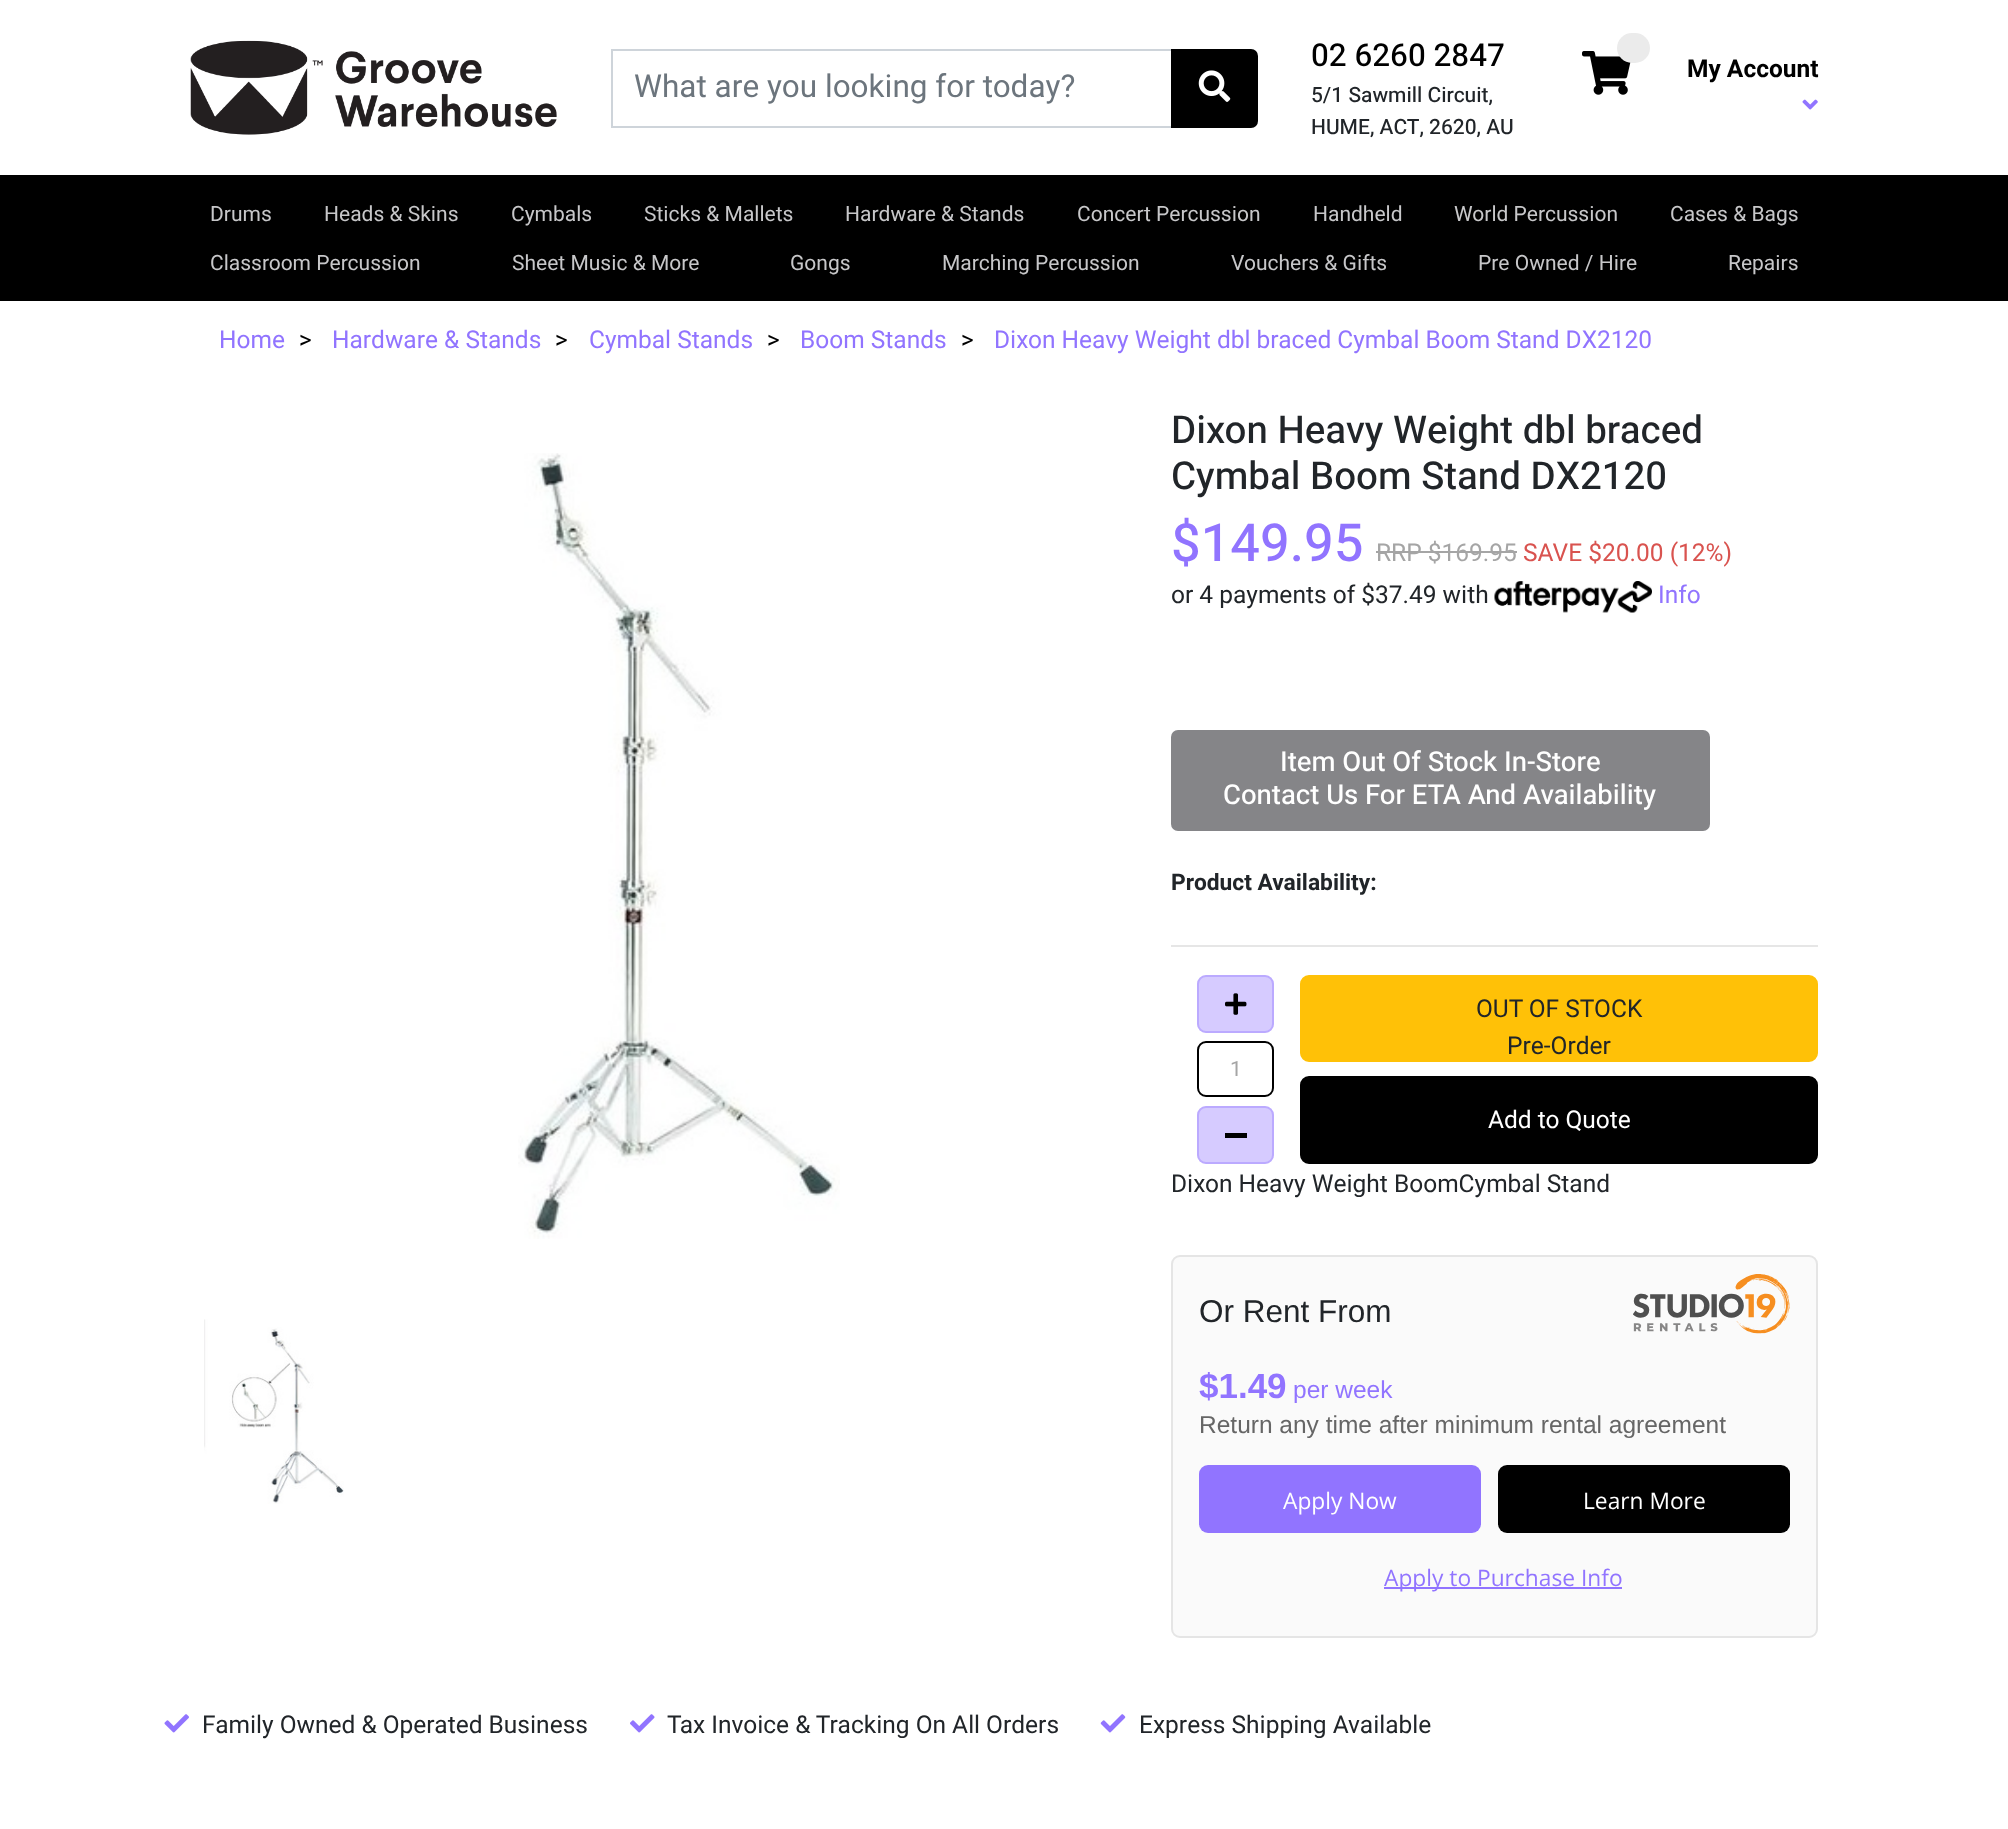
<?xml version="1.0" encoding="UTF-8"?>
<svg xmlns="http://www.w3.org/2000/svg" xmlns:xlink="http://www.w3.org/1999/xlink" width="2008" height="1829">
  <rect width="100%" height="100%" fill="#ffffff" />
  <image x="190" y="40" width="367" height="95" xlink:href="image1.png" />
  <rect x="612" y="50" width="560" height="77" fill="none" stroke="#ced4da" stroke-width="2" />
  <path d="M 1172 50 h 79 c 3.5 0 6 2.5 6 6 v 65 c 0 3.5 -2.5 6 -6 6 h -79 z" fill="#000000" stroke="#000000" stroke-width="2" />
  <image x="1198" y="70" width="33" height="32" xlink:href="image2.png" />
  <image x="1582" y="51" width="49" height="44" xlink:href="image3.png" />
  <rect x="1617" y="33" width="33" height="30" rx="15" fill="#ebebeb" />
  <image x="1802" y="99" width="16" height="11" xlink:href="image4.png" />
  <rect y="175" width="2008" height="126" fill="#000000" />
  <image x="518" y="453" width="322" height="786" xlink:href="image5.png" />
  <image x="204" y="1319" width="140" height="185" xlink:href="image6.png" />
  <rect x="1376" y="551" width="141" height="2" fill="#a5a5a5" />
  <image x="1494" y="581" width="158" height="32" xlink:href="image7.png" />
  <rect x="1171" y="730" width="539" height="101" rx="7" fill="#858588" />
  <rect x="1171" y="945" width="647" height="2" fill="#e6e6e6" />
  <rect x="1197" y="975" width="77" height="58" rx="9" fill="#d6cbff" />
  <rect x="1198" y="976" width="75" height="56" rx="8" fill="none" stroke="#9174ff" stroke-opacity="0.38" stroke-width="2" />
  <image x="1225" y="993" width="22" height="22" xlink:href="image8.png" />
  <rect x="1198" y="1042" width="75" height="54" rx="8" fill="none" stroke="#000000" stroke-width="2" />
  <rect x="1197" y="1106" width="77" height="58" rx="9" fill="#d6cbff" />
  <rect x="1198" y="1107" width="75" height="56" rx="8" fill="none" stroke="#9174ff" stroke-opacity="0.38" stroke-width="2" />
  <rect x="1225" y="1133" width="22" height="5" fill="#000000" />
  <rect x="1301" y="976" width="516" height="85" rx="8" fill="#ffc107" stroke="#ffc107" stroke-width="2" />
  <rect x="1301" y="1077" width="516" height="86" rx="8" fill="#000000" stroke="#000000" stroke-width="2" />
  <rect x="1172" y="1256" width="645" height="381" rx="8" fill="#fafafa" stroke="#e5e5e5" stroke-width="2" />
  <image x="1633" y="1274" width="157" height="60" xlink:href="image9.png" />
  <rect x="1199" y="1465" width="282" height="68" rx="9" fill="#9174ff" />
  <rect x="1498" y="1465" width="292" height="68" rx="9" fill="#000000" />
  <rect x="1384" y="1587" width="238" height="2" fill="#9174ff" />
  <image x="164" y="1714" width="25" height="19" xlink:href="image10.png" />
  <image x="630" y="1714" width="25" height="19" xlink:href="image11.png" />
  <image x="1100" y="1714" width="26" height="19" xlink:href="image12.png" />
  <text x="634" y="97" style="font-family: Heebo; font-size: 31.5px; fill: #6c757d">What are you looking for today?</text>
  <text x="1311" y="66" style="font-family: Heebo; font-size: 31.5px; font-weight: 500; fill: #000000">02 6260 2847</text>
  <text x="1311" y="102" style="font-family: Heebo; font-size: 21px; font-weight: 500; fill: #212529">5/1 Sawmill Circuit,</text>
  <text x="1311" y="134" style="font-family: Heebo; font-size: 21px; font-weight: 500; fill: #212529">HUME, ACT, 2620, AU</text>
  <text x="1687" y="77" style="font-family: Heebo; font-size: 24.5px; font-weight: bold; fill: #000000">My Account</text>
  <text x="210" y="221" style="font-family: Heebo; font-size: 21px; fill: #c7c7c9">Drums</text>
  <text x="324" y="221" style="font-family: Heebo; font-size: 21px; fill: #c7c7c9">Heads &amp; Skins</text>
  <text x="511" y="221" style="font-family: Heebo; font-size: 21px; fill: #c7c7c9">Cymbals</text>
  <text x="644" y="221" style="font-family: Heebo; font-size: 21px; fill: #c7c7c9">Sticks &amp; Mallets</text>
  <text x="845" y="221" style="font-family: Heebo; font-size: 21px; fill: #c7c7c9">Hardware &amp; Stands</text>
  <text x="1077" y="221" style="font-family: Heebo; font-size: 21px; fill: #c7c7c9">Concert Percussion</text>
  <text x="1313" y="221" style="font-family: Heebo; font-size: 21px; fill: #c7c7c9">Handheld</text>
  <text x="1454" y="221" style="font-family: Heebo; font-size: 21px; fill: #c7c7c9">World Percussion</text>
  <text x="1670" y="221" style="font-family: Heebo; font-size: 21px; fill: #c7c7c9">Cases &amp; Bags</text>
  <text x="210" y="270" style="font-family: Heebo; font-size: 21px; fill: #c7c7c9">Classroom Percussion</text>
  <text x="512" y="270" style="font-family: Heebo; font-size: 21px; fill: #c7c7c9">Sheet Music &amp; More</text>
  <text x="790" y="270" style="font-family: Heebo; font-size: 21px; fill: #c7c7c9">Gongs</text>
  <text x="942" y="270" style="font-family: Heebo; font-size: 21px; fill: #c7c7c9">Marching Percussion</text>
  <text x="1231" y="270" style="font-family: Heebo; font-size: 21px; fill: #c7c7c9">Vouchers &amp; Gifts</text>
  <text x="1478" y="270" style="font-family: Heebo; font-size: 21px; fill: #c7c7c9">Pre Owned / Hire</text>
  <text x="1728" y="270" style="font-family: Heebo; font-size: 21px; fill: #c7c7c9">Repairs</text>
  <text x="219" y="348" style="font-family: Heebo; font-size: 24.5px; fill: #9174ff">Home</text>
  <text x="299" y="348" style="font-family: Heebo; font-size: 24.5px; fill: #000000">&gt;</text>
  <text x="332" y="348" style="font-family: Heebo; font-size: 24.5px; fill: #9174ff">Hardware &amp; Stands</text>
  <text x="555" y="348" style="font-family: Heebo; font-size: 24.5px; fill: #000000">&gt;</text>
  <text x="589" y="348" style="font-family: Heebo; font-size: 24.5px; fill: #9174ff">Cymbal Stands</text>
  <text x="767" y="348" style="font-family: Heebo; font-size: 24.5px; fill: #000000">&gt;</text>
  <text x="800" y="348" style="font-family: Heebo; font-size: 24.5px; fill: #9174ff">Boom Stands</text>
  <text x="961" y="348" style="font-family: Heebo; font-size: 24.5px; fill: #000000">&gt;</text>
  <text x="994" y="348" style="font-family: Heebo; font-size: 24.5px; fill: #9174ff">Dixon Heavy Weight dbl braced Cymbal Boom Stand DX2120</text>
  <text x="1171" y="443" style="font-family: Heebo; font-size: 38.5px; font-weight: 500; fill: #212529">Dixon Heavy Weight dbl braced</text>
  <text x="1171" y="489" style="font-family: Heebo; font-size: 38.5px; font-weight: 500; fill: #212529">Cymbal Boom Stand DX2120</text>
  <text x="1171" y="561" style="font-family: Heebo; font-size: 52.5px; font-weight: 500; fill: #9174ff">$149.95</text>
  <text x="1376" y="561" style="font-family: Heebo; font-size: 24.5px; fill: #a5a5a5">RRP $169.95</text>
  <text x="1523" y="561" style="font-family: Heebo; font-size: 24.5px; fill: #d9534f">SAVE $20.00 (12%)</text>
  <text x="1171" y="603" style="font-family: Heebo; font-size: 24.5px; fill: #212529">or 4 payments of $37.49 with</text>
  <text x="1658" y="603" style="font-family: Heebo; font-size: 24.5px; fill: #9174ff">Info</text>
  <text x="1280" y="771" style="font-family: Heebo; font-size: 27.5px; font-weight: 500; fill: #ffffff">Item Out Of Stock In-Store</text>
  <text x="1223" y="804" style="font-family: Heebo; font-size: 27.5px; font-weight: 500; fill: #ffffff">Contact Us For ETA And Availability</text>
  <text x="1171" y="890" style="font-family: Heebo; font-size: 22.75px; font-weight: bold; fill: #212529">Product Availability:</text>
  <text x="1230" y="1076" style="font-family: Heebo; font-size: 21px; fill: #a5a5a5">1</text>
  <text x="1476" y="1017" style="font-family: Heebo; font-size: 24.5px; fill: #212529">OUT OF STOCK</text>
  <text x="1507" y="1054" style="font-family: Heebo; font-size: 24.5px; fill: #212529">Pre-Order</text>
  <text x="1488" y="1128" style="font-family: Heebo; font-size: 24.5px; fill: #ffffff">Add to Quote</text>
  <text x="1171" y="1192" style="font-family: Heebo; font-size: 24.5px; fill: #212529">Dixon Heavy Weight BoomCymbal Stand</text>
  <text x="1199" y="1322" style="font-family: Liberation Sans; font-size: 31.5px; fill: #212529">Or Rent From</text>
  <text x="1199" y="1398" style="font-family: Liberation Sans; font-size: 35px; font-weight: bold; fill: #9174ff">$1.49</text>
  <text x="1293" y="1398" style="font-family: Liberation Sans; font-size: 24.5px; fill: #9174ff">per week</text>
  <text x="1199" y="1433" style="font-family: Liberation Sans; font-size: 24.5px; fill: #666666">Return any time after minimum rental agreement</text>
  <text x="1283" y="1509" style="font-family: Open Sans; font-size: 22.75px; fill: #ffffff">Apply Now</text>
  <text x="1583" y="1509" style="font-family: Open Sans; font-size: 22.75px; fill: #ffffff">Learn More</text>
  <text x="1384" y="1586" style="font-family: Open Sans; font-size: 22.75px; fill: #9174ff">Apply to Purchase Info</text>
  <text x="202" y="1733" style="font-family: Heebo; font-size: 24.5px; fill: #212529">Family Owned &amp; Operated Business</text>
  <text x="667" y="1733" style="font-family: Heebo; font-size: 24.5px; fill: #212529">Tax Invoice &amp; Tracking On All Orders</text>
  <text x="1139" y="1733" style="font-family: Heebo; font-size: 24.5px; fill: #212529">Express Shipping Available</text>
</svg>
